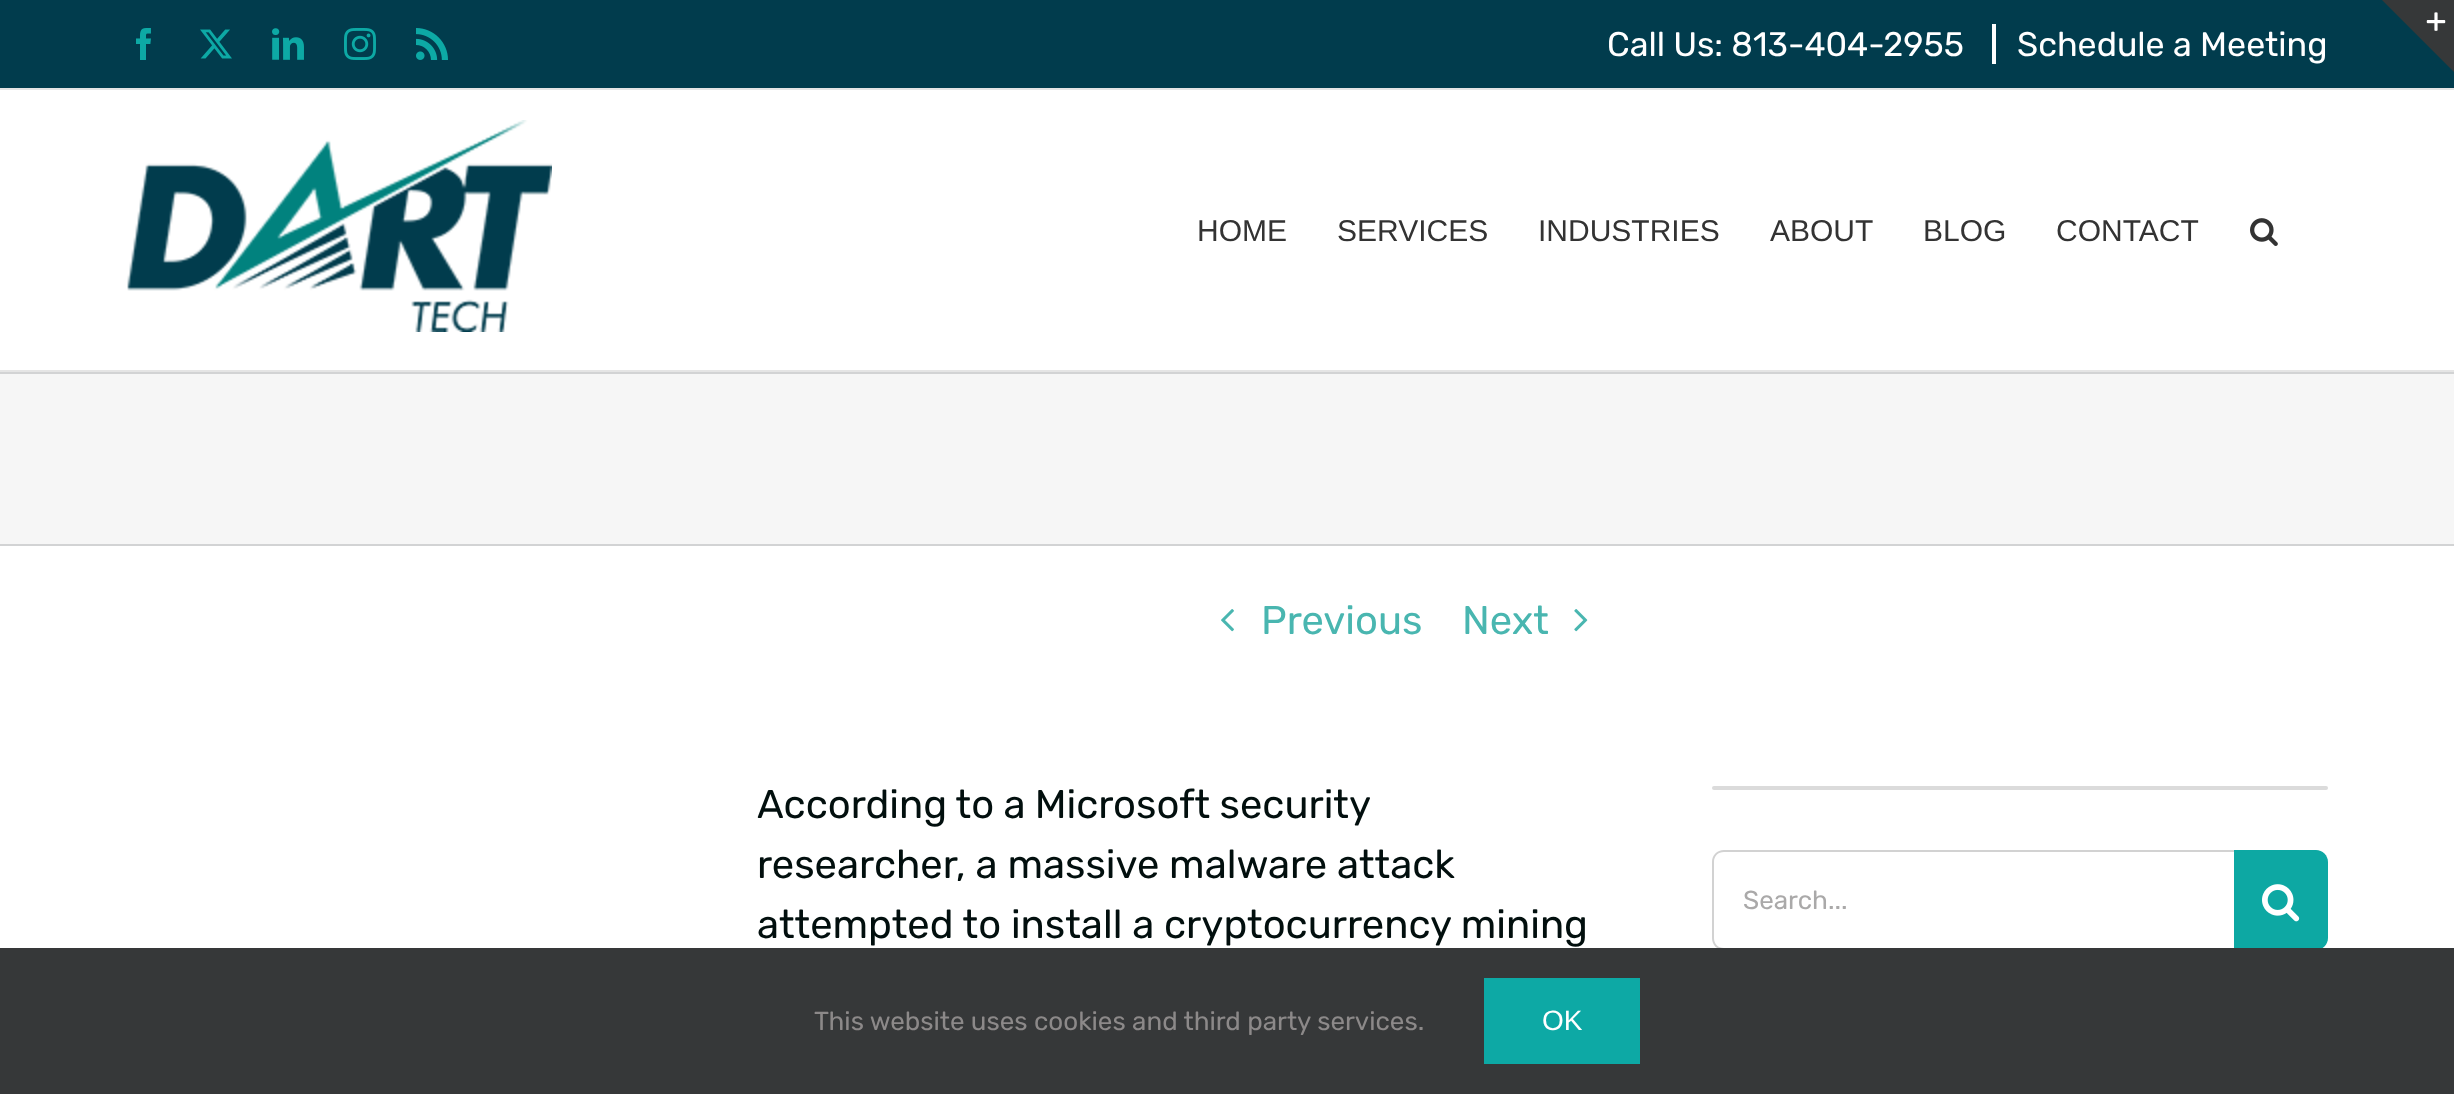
<?xml version="1.0" encoding="UTF-8"?>
<svg xmlns="http://www.w3.org/2000/svg" xmlns:xlink="http://www.w3.org/1999/xlink" width="2454" height="1094">
  <rect width="100%" height="100%" fill="#ffffff" />
  <rect width="2454" height="88" fill="#013c4d" />
  <rect y="88" width="2454" height="2" fill="#e5e5e5" />
  <image x="136" y="28" width="15" height="32" xlink:href="image1.png" />
  <image x="200" y="29" width="32" height="30" xlink:href="image2.png" />
  <image x="272" y="28" width="32" height="32" xlink:href="image3.png" />
  <image x="344" y="28" width="32" height="32" xlink:href="image4.png" />
  <image x="416" y="28" width="32" height="32" xlink:href="image5.png" />
  <rect x="1992" y="24" width="4" height="40" fill="#ffffff" />
  <rect y="370" width="2454" height="2" fill="#e5e5e5" />
  <image x="127" y="120" width="425" height="212" xlink:href="image6.png" />
  <image x="2250" y="218" width="28" height="28" xlink:href="image7.png" />
  <path d="M 2382 0 h 72 v 72 z" fill="#363839" />
  <image x="2426" y="12" width="20" height="19" xlink:href="image8.png" />
  <rect y="374" width="2454" height="170" fill="#f6f6f6" />
  <rect y="372" width="2454" height="2" fill="#d2d3d4" />
  <rect y="544" width="2454" height="2" fill="#d2d3d4" />
  <image x="1221" y="609" width="13" height="23" xlink:href="image9.png" />
  <image x="1574" y="609" width="14" height="23" xlink:href="image10.png" />
  <rect x="1712" y="786" width="616" height="4" rx="2" fill="#dbdbdb" />
  <path d="M 1724 850 h 510 v 100 h -510 c -7 0 -12 -5 -12 -12 v -76 c 0 -7 5 -12 12 -12 z m 0 2 h 510 v 96 h -510 c -6 0 -10 -4 -10 -10 v -76 c 0 -6 4 -10 10 -10 z" fill="#d2d2d2" fill-rule="evenodd" />
  <path d="M 2234 850 h 82 c 6.5 0 12 5.5 12 12 v 76 c 0 6.5 -5.5 12 -12 12 h -82 z" fill="#0da8a3" />
  <image x="2262" y="884" width="38" height="38" xlink:href="image11.png" />
  <rect y="948" width="2454" height="146" fill="#363839" />
  <rect x="1484" y="978" width="156" height="86" fill="#0da9a5" />
  <text x="1607" y="56" style="font-family: Rubik; font-size: 34px; fill: #ffffff">Call Us: 813-404-2955</text>
  <text x="2017" y="56" style="font-family: Rubik; font-size: 34px; fill: #ffffff">Schedule a Meeting</text>
  <text x="1197" y="241" style="font-family: Liberation Sans; font-size: 30px; fill: #333333">HOME</text>
  <text x="1337" y="241" style="font-family: Liberation Sans; font-size: 30px; fill: #333333">SERVICES</text>
  <text x="1538" y="241" style="font-family: Liberation Sans; font-size: 30px; fill: #333333">INDUSTRIES</text>
  <text x="1770" y="241" style="font-family: Liberation Sans; font-size: 30px; fill: #333333">ABOUT</text>
  <text x="1923" y="241" style="font-family: Liberation Sans; font-size: 30px; fill: #333333">BLOG</text>
  <text x="2056" y="241" style="font-family: Liberation Sans; font-size: 30px; fill: #333333">CONTACT</text>
  <text x="1261" y="634" style="font-family: Rubik; font-size: 40px; fill: #49b6b0">Previous</text>
  <text x="1462" y="634" style="font-family: Rubik; font-size: 40px; fill: #49b6b0">Next</text>
  <text x="757" y="818" word-spacing="-0.5" style="font-family: Rubik; font-size: 40px; fill: #020f0e">According to a Microsoft security</text>
  <text x="757" y="878" style="font-family: Rubik; font-size: 40px; fill: #020f0e">researcher, a massive malware attack</text>
  <text x="757" y="938" style="font-family: Rubik; font-size: 40px; fill: #020f0e">attempted to install a cryptocurrency mining</text>
  <text x="1743" y="909" style="font-family: Rubik; font-size: 26px; fill: #aaa9a9">Search...</text>
  <text x="814" y="1030" style="font-family: Rubik; font-size: 26px; fill: #8c8989">This website uses cookies and third party services.</text>
  <text x="1542" y="1030" style="font-family: Liberation Sans; font-size: 28px; fill: #ffffff">OK</text>
</svg>
